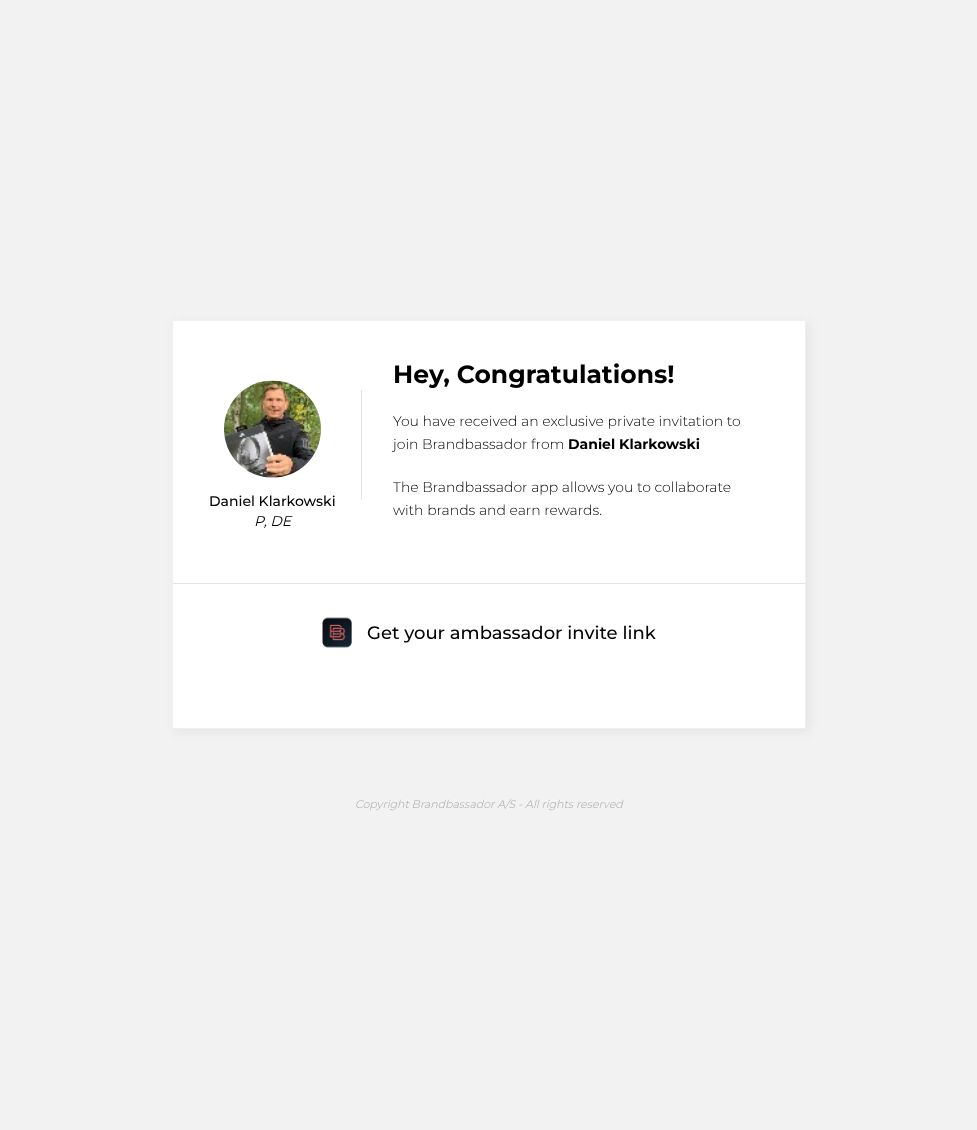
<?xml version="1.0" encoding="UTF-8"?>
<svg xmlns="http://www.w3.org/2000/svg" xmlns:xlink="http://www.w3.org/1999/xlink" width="977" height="1130">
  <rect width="100%" height="100%" fill="#f2f2f2" />
  <rect x="175" y="323" width="634" height="409" fill="#000000" fill-opacity="0.06" filter="blur(6px)" />
  <rect x="172.5" y="320.5" width="633" height="408" fill="#ffffff" stroke="#efefef" />
  <image x="224" y="380" width="97" height="98" xlink:href="image1.png" />
  <rect x="361" y="390" width="1" height="110" fill="#e4e4e4" />
  <rect x="173" y="583" width="632" height="1" fill="#e4e4e4" />
  <image x="322" y="617" width="30" height="31" xlink:href="image2.png" />
  <text x="209" y="506" style="font-family: Montserrat; font-size: 14px; font-weight: 500; fill: #000000">Daniel Klarkowski</text>
  <text x="254" y="526" style="font-family: Montserrat; font-size: 14px; font-style: italic; fill: #000000">P, DE</text>
  <text x="393" y="383" style="font-family: Montserrat; font-size: 25px; font-weight: bold; fill: #000000">Hey, Congratulations!</text>
  <text x="393" y="426" style="font-family: Montserrat; font-size: 14px; font-weight: 300; fill: #000000">You have received an exclusive private invitation to</text>
  <text x="393" y="449" style="font-family: Montserrat; font-size: 14px; font-weight: 300; fill: #000000">join Brandbassador from</text>
  <text x="568" y="449" style="font-family: Montserrat; font-size: 14px; font-weight: bold; fill: #000000">Daniel Klarkowski</text>
  <text x="393" y="492" style="font-family: Montserrat; font-size: 14px; font-weight: 300; fill: #000000">The Brandbassador app allows you to collaborate</text>
  <text x="393" y="515" style="font-family: Montserrat; font-size: 14px; font-weight: 300; fill: #000000">with brands and earn rewards.</text>
  <text x="367" y="639" style="font-family: Montserrat; font-size: 18px; font-weight: 500; fill: #000000">Get your ambassador invite link</text>
  <text x="355" y="808" style="font-family: Montserrat; font-size: 11px; font-weight: 300; font-style: italic; fill: #a8a8a8">Copyright Brandbassador A/S - All rights reserved</text>
</svg>
